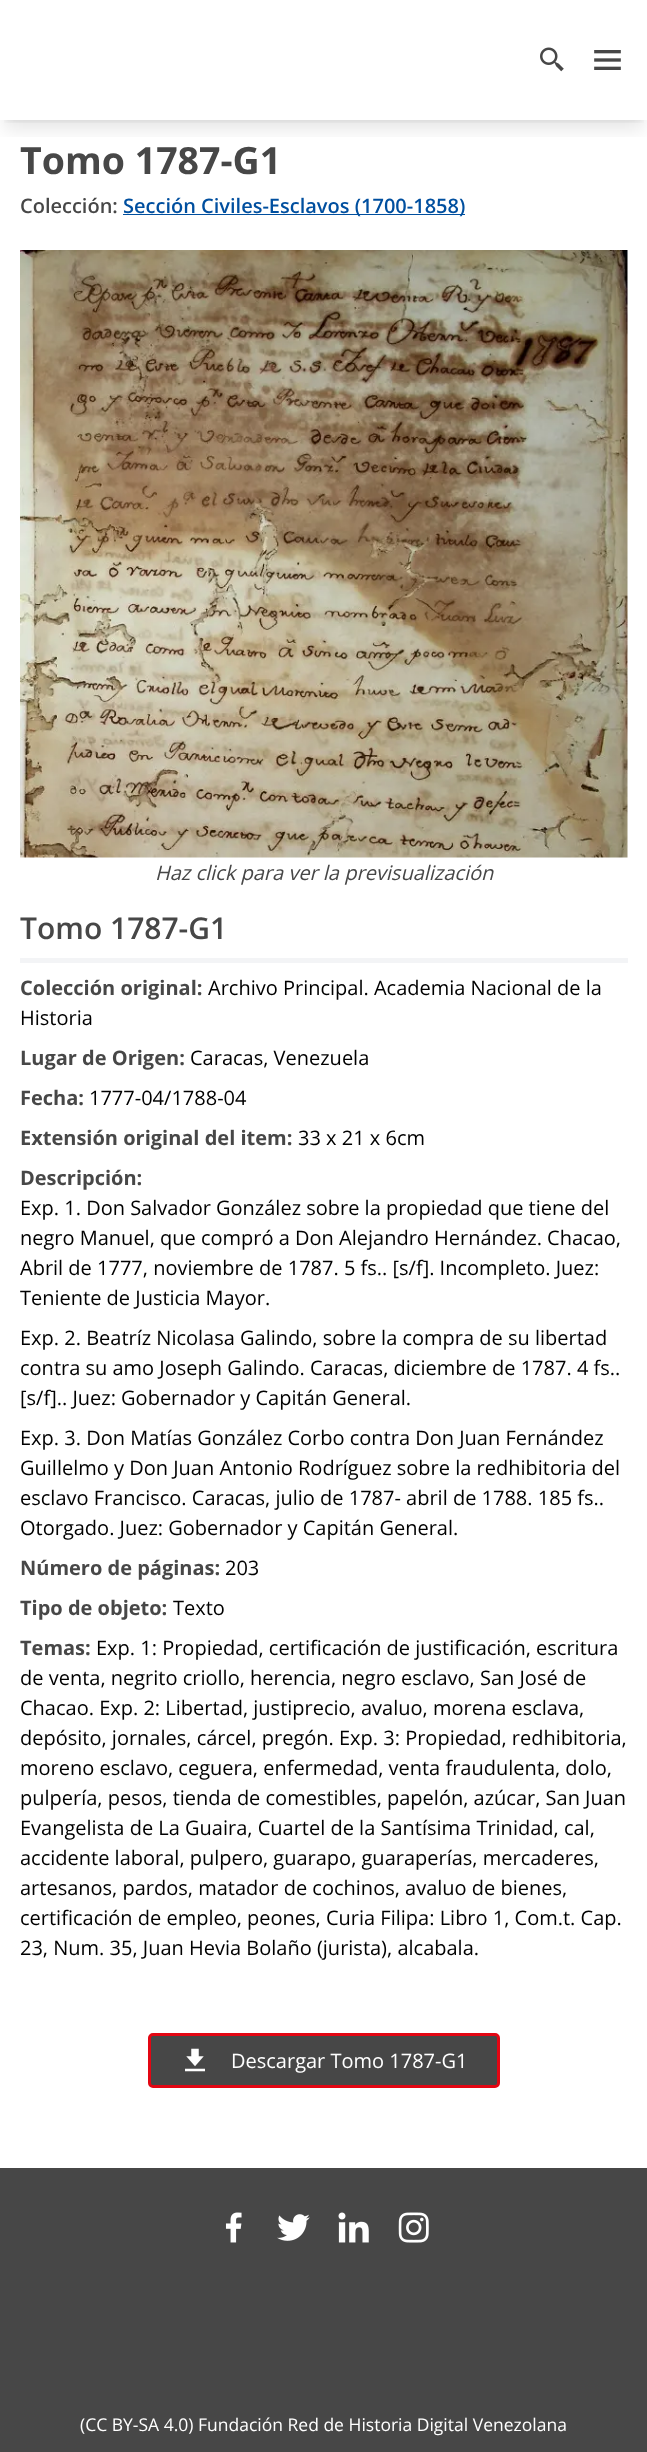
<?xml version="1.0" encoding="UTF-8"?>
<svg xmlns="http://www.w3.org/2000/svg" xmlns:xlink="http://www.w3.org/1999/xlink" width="647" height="2452">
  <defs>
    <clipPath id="clip1"><rect x="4" y="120" width="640" height="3" /></clipPath>
    <clipPath id="clip2"><rect x="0" y="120" width="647" height="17" /></clipPath>
  </defs>
  <rect width="100%" height="100%" fill="#ffffff" />
  <g clip-path="url(#clip1)">
    <rect x="5" y="10" width="638" height="110" fill="#000000" fill-opacity="0.1" filter="blur(4px)" />
  </g>
  <g clip-path="url(#clip2)">
    <rect x="4" y="16" width="640" height="113" fill="#000000" fill-opacity="0.1" filter="blur(9.5px)" />
  </g>
  <image x="540" y="47" width="24" height="25" xlink:href="image1.png" />
  <image x="594" y="50" width="27" height="20" xlink:href="image2.png" />
  <rect x="123" y="214" width="342" height="1" fill="#004f9f" />
  <image x="20" y="250" width="608" height="608" xlink:href="image3.png" />
  <rect x="20" y="958" width="608" height="5" fill="#f3f4f6" />
  <rect x="149.5" y="2034.5" width="349" height="52" rx="3.5" fill="#474747" stroke="#e30613" stroke-width="3" />
  <image x="185" y="2048" width="20" height="24" xlink:href="image4.png" />
  <rect y="2168" width="647" height="284" fill="#474747" />
  <image x="225" y="2212" width="17" height="31" xlink:href="image5.png" />
  <image x="277" y="2214" width="33" height="27" xlink:href="image6.png" />
  <image x="338" y="2212" width="31" height="31" xlink:href="image7.png" />
  <image x="398" y="2212" width="31" height="31" xlink:href="image8.png" />
  <text x="20" y="174" style="font-family: Open Sans; font-size: 37.5px; font-weight: bold; fill: #474747">Tomo 1787-G1</text>
  <text x="20" y="213" style="font-family: Open Sans; font-size: 20px; font-weight: 600; fill: #474747">Colección:</text>
  <text x="123" y="213" style="font-family: Open Sans; font-size: 20px; font-weight: 600; fill: #004f9f">Sección Civiles-Esclavos (1700-1858)</text>
  <text x="155" y="880" style="font-family: Open Sans; font-size: 20px; font-style: italic; fill: #474747">Haz click para ver la previsualización</text>
  <text x="20" y="939" style="font-family: Open Sans; font-size: 30px; font-weight: 600; fill: #474747">Tomo 1787-G1</text>
  <text x="20" y="995" style="font-family: Open Sans; font-size: 20px; font-weight: bold; fill: #474747">Colección original:</text>
  <text x="208" y="995" style="font-family: Open Sans; font-size: 20px; fill: #000000">Archivo Principal. Academia Nacional de la</text>
  <text x="20" y="1025" style="font-family: Open Sans; font-size: 20px; fill: #000000">Historia</text>
  <text x="20" y="1065" style="font-family: Open Sans; font-size: 20px; font-weight: bold; fill: #474747">Lugar de Origen:</text>
  <text x="190" y="1065" style="font-family: Open Sans; font-size: 20px; fill: #000000">Caracas, Venezuela</text>
  <text x="20" y="1105" style="font-family: Open Sans; font-size: 20px; font-weight: bold; fill: #474747">Fecha:</text>
  <text x="89" y="1105" style="font-family: Open Sans; font-size: 20px; fill: #000000">1777-04/1788-04</text>
  <text x="20" y="1145" style="font-family: Open Sans; font-size: 20px; font-weight: bold; fill: #474747">Extensión original del item:</text>
  <text x="298" y="1145" style="font-family: Open Sans; font-size: 20px; fill: #000000">33 x 21 x 6cm</text>
  <text x="20" y="1185" style="font-family: Open Sans; font-size: 20px; font-weight: bold; fill: #474747">Descripción:</text>
  <text x="20" y="1215" style="font-family: Open Sans; font-size: 20px; fill: #000000">Exp. 1. Don Salvador González sobre la propiedad que tiene del</text>
  <text x="20" y="1245" style="font-family: Open Sans; font-size: 20px; fill: #000000">negro Manuel, que compró a Don Alejandro Hernández. Chacao,</text>
  <text x="20" y="1275" style="font-family: Open Sans; font-size: 20px; fill: #000000">Abril de 1777, noviembre de 1787. 5 fs.. [s/f]. Incompleto. Juez:</text>
  <text x="20" y="1305" style="font-family: Open Sans; font-size: 20px; fill: #000000">Teniente de Justicia Mayor.</text>
  <text x="20" y="1345" style="font-family: Open Sans; font-size: 20px; fill: #000000">Exp. 2. Beatríz Nicolasa Galindo, sobre la compra de su libertad</text>
  <text x="20" y="1375" style="font-family: Open Sans; font-size: 20px; fill: #000000">contra su amo Joseph Galindo. Caracas, diciembre de 1787. 4 fs..</text>
  <text x="20" y="1405" style="font-family: Open Sans; font-size: 20px; fill: #000000">[s/f].. Juez: Gobernador y Capitán General.</text>
  <text x="20" y="1445" style="font-family: Open Sans; font-size: 20px; fill: #000000">Exp. 3. Don Matías González Corbo contra Don Juan Fernández</text>
  <text x="20" y="1475" style="font-family: Open Sans; font-size: 20px; fill: #000000">Guillelmo y Don Juan Antonio Rodríguez sobre la redhibitoria del</text>
  <text x="20" y="1505" style="font-family: Open Sans; font-size: 20px; fill: #000000">esclavo Francisco. Caracas, julio de 1787- abril de 1788. 185 fs..</text>
  <text x="20" y="1535" style="font-family: Open Sans; font-size: 20px; fill: #000000">Otorgado. Juez: Gobernador y Capitán General.</text>
  <text x="20" y="1575" style="font-family: Open Sans; font-size: 20px; font-weight: bold; fill: #474747">Número de páginas:</text>
  <text x="225" y="1575" style="font-family: Open Sans; font-size: 20px; fill: #000000">203</text>
  <text x="20" y="1615" style="font-family: Open Sans; font-size: 20px; font-weight: bold; fill: #474747">Tipo de objeto:</text>
  <text x="173" y="1615" style="font-family: Open Sans; font-size: 20px; fill: #000000">Texto</text>
  <text x="20" y="1655" style="font-family: Open Sans; font-size: 20px; font-weight: bold; fill: #474747">Temas:</text>
  <text x="96" y="1655" style="font-family: Open Sans; font-size: 20px; fill: #000000">Exp. 1: Propiedad, certificación de justificación, escritura</text>
  <text x="20" y="1685" style="font-family: Open Sans; font-size: 20px; fill: #000000">de venta, negrito criollo, herencia, negro esclavo, San José de</text>
  <text x="20" y="1715" style="font-family: Open Sans; font-size: 20px; fill: #000000">Chacao. Exp. 2: Libertad, justiprecio, avaluo, morena esclava,</text>
  <text x="20" y="1745" style="font-family: Open Sans; font-size: 20px; fill: #000000">depósito, jornales, cárcel, pregón. Exp. 3: Propiedad, redhibitoria,</text>
  <text x="20" y="1775" style="font-family: Open Sans; font-size: 20px; fill: #000000">moreno esclavo, ceguera, enfermedad, venta fraudulenta, dolo,</text>
  <text x="20" y="1805" style="font-family: Open Sans; font-size: 20px; fill: #000000">pulpería, pesos, tienda de comestibles, papelón, azúcar, San Juan</text>
  <text x="20" y="1835" style="font-family: Open Sans; font-size: 20px; fill: #000000">Evangelista de La Guaira, Cuartel de la Santísima Trinidad, cal,</text>
  <text x="20" y="1865" style="font-family: Open Sans; font-size: 20px; fill: #000000">accidente laboral, pulpero, guarapo, guaraperías, mercaderes,</text>
  <text x="20" y="1895" style="font-family: Open Sans; font-size: 20px; fill: #000000">artesanos, pardos, matador de cochinos, avaluo de bienes,</text>
  <text x="20" y="1925" style="font-family: Open Sans; font-size: 20px; fill: #000000">certificación de empleo, peones, Curia Filipa: Libro 1, Com.t. Cap.</text>
  <text x="20" y="1955" style="font-family: Open Sans; font-size: 20px; fill: #000000">23, Num. 35, Juan Hevia Bolaño (jurista), alcabala.</text>
  <text x="231" y="2068" style="font-family: Open Sans; font-size: 20px; fill: #ffffff">Descargar Tomo 1787-G1</text>
  <text x="80" y="2431" style="font-family: Open Sans; font-size: 17.5px; fill: #ffffff">(CC BY-SA 4.0) Fundación Red de Historia Digital Venezolana</text>
</svg>
